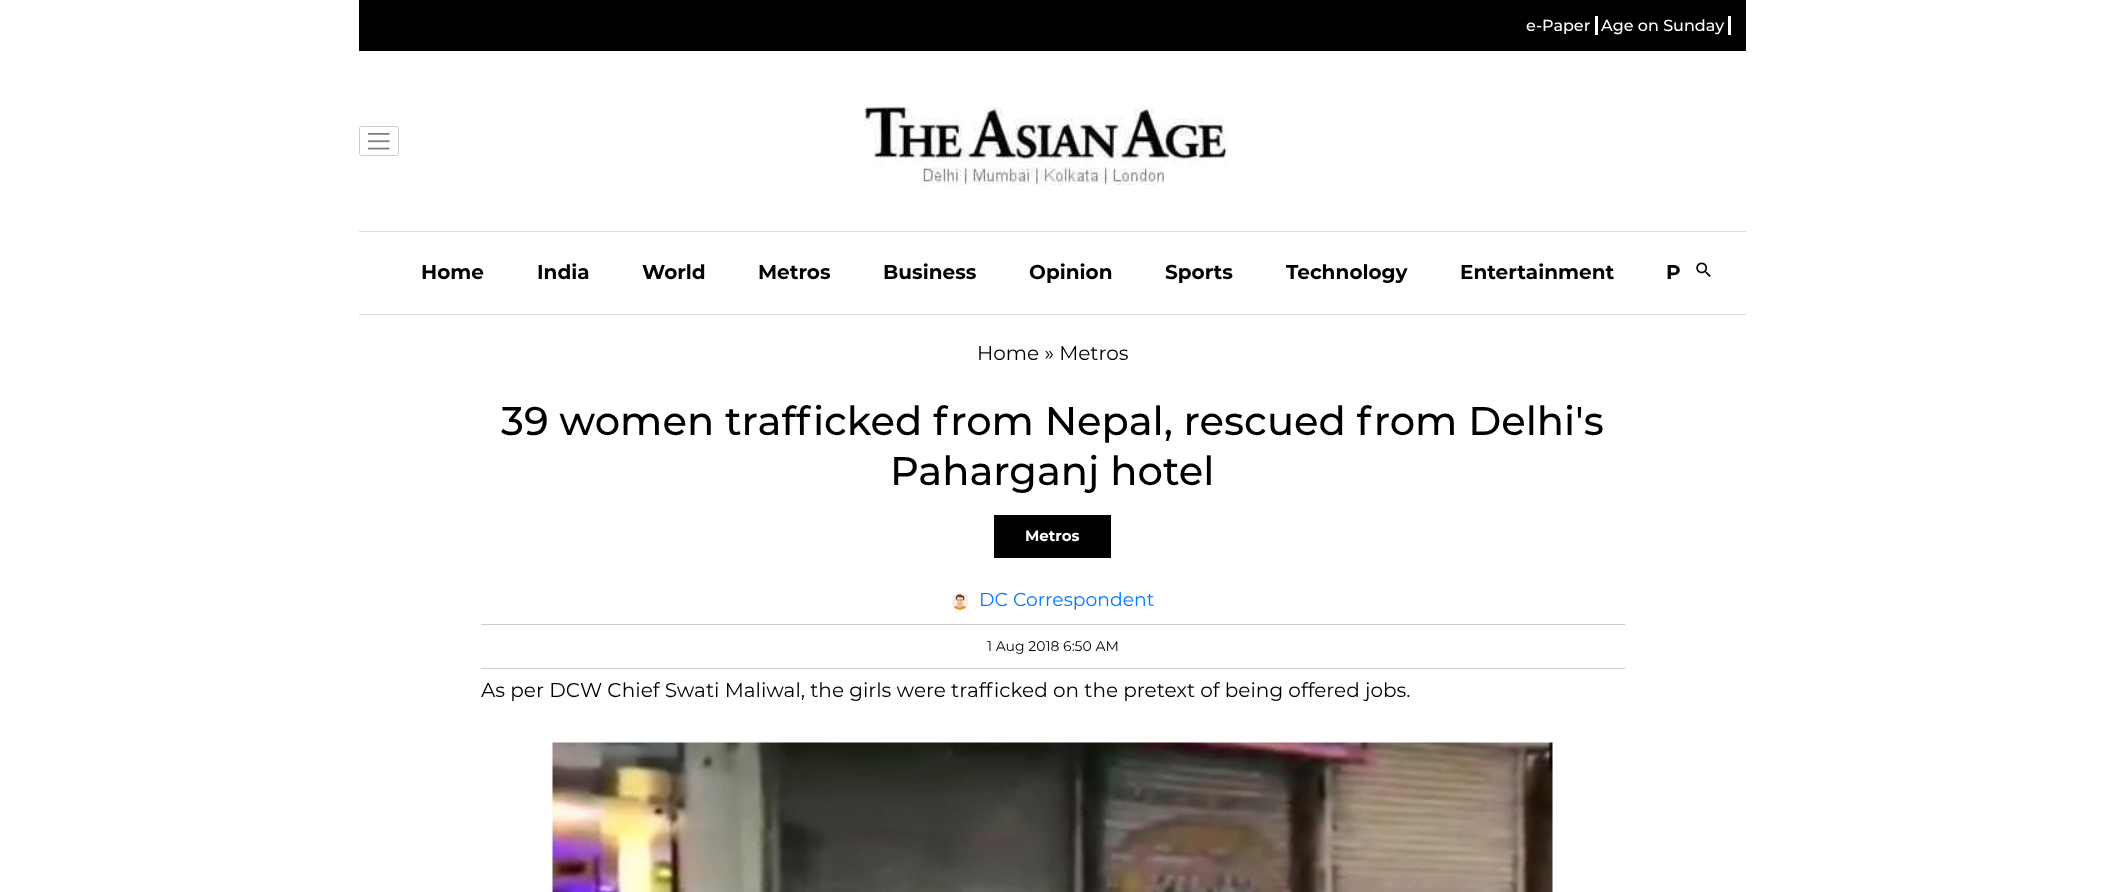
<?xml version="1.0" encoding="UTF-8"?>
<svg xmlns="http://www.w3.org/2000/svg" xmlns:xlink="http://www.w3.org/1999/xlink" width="2104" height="892">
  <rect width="100%" height="100%" fill="#ffffff" />
  <rect x="359" width="1387" height="51" fill="#000000" />
  <rect x="1595" y="16" width="3" height="19" fill="#ffffff" />
  <rect x="1728" y="16" width="3" height="19" fill="#ffffff" />
  <rect x="359" y="231" width="1387" height="1" fill="#dbdbdb" />
  <image x="367" y="133" width="23" height="17" xlink:href="image1.png" />
  <rect x="359.5" y="126.5" width="39" height="29" rx="2" fill="none" stroke="#cccccc" />
  <image x="863" y="107" width="365" height="78" xlink:href="image2.png" />
  <rect x="359" y="314" width="1387" height="1" fill="#dbdbdb" />
  <image x="1696" y="262" width="15" height="15" xlink:href="image3.png" />
  <rect x="994" y="515" width="117" height="43" fill="#000000" />
  <image x="951" y="592" width="18" height="18" xlink:href="image4.png" />
  <rect x="481" y="624" width="1144" height="1" fill="#cccccc" />
  <rect x="481" y="668" width="1144" height="1" fill="#cccccc" />
  <image x="552" y="742" width="1001" height="150" xlink:href="image5.png" />
  <text x="1526" y="31" style="font-family: Montserrat; font-size: 16px; font-weight: 500; fill: #ffffff">e-Paper</text>
  <text x="1601" y="31" style="font-family: Montserrat; font-size: 16px; font-weight: 500; fill: #ffffff">Age on Sunday</text>
  <text x="421" y="279" style="font-family: Montserrat; font-size: 20px; font-weight: bold; fill: #000000">Home</text>
  <text x="537" y="279" style="font-family: Montserrat; font-size: 20px; font-weight: bold; fill: #000000">India</text>
  <text x="642" y="279" style="font-family: Montserrat; font-size: 20px; font-weight: bold; fill: #000000">World</text>
  <text x="758" y="279" style="font-family: Montserrat; font-size: 20px; font-weight: bold; fill: #000000">Metros</text>
  <text x="883" y="279" style="font-family: Montserrat; font-size: 20px; font-weight: bold; fill: #000000">Business</text>
  <text x="1029" y="279" style="font-family: Montserrat; font-size: 20px; font-weight: bold; fill: #000000">Opinion</text>
  <text x="1165" y="279" style="font-family: Montserrat; font-size: 20px; font-weight: bold; fill: #000000">Sports</text>
  <text x="1286" y="279" style="font-family: Montserrat; font-size: 20px; font-weight: bold; fill: #000000">Technology</text>
  <text x="1460" y="279" style="font-family: Montserrat; font-size: 20px; font-weight: bold; fill: #000000">Entertainment</text>
  <text x="1666" y="279" style="font-family: Montserrat; font-size: 20px; font-weight: bold; fill: #000000">P</text>
  <text x="977" y="360" style="font-family: Montserrat; font-size: 20px; fill: #000000">Home » Metros</text>
  <text x="501" y="435" style="font-family: Montserrat; font-size: 40px; font-weight: 500; fill: #000000">39 women trafficked from Nepal, rescued from Delhi's</text>
  <text x="890" y="485" style="font-family: Montserrat; font-size: 40px; font-weight: 500; fill: #000000">Paharganj hotel</text>
  <text x="1025" y="541" style="font-family: Montserrat; font-size: 15px; font-weight: bold; fill: #ffffff">Metros</text>
  <text x="979" y="606" style="font-family: Montserrat; font-size: 18.75px; fill: #007bff">DC Correspondent</text>
  <text x="987" y="651" style="font-family: Montserrat; font-size: 14px; fill: #000000">1 Aug 2018 6:50 AM</text>
  <text x="481" y="697" style="font-family: Montserrat; font-size: 20px; fill: #000000">As per DCW Chief Swati Maliwal, the girls were trafficked on the pretext of being offered jobs.</text>
</svg>
